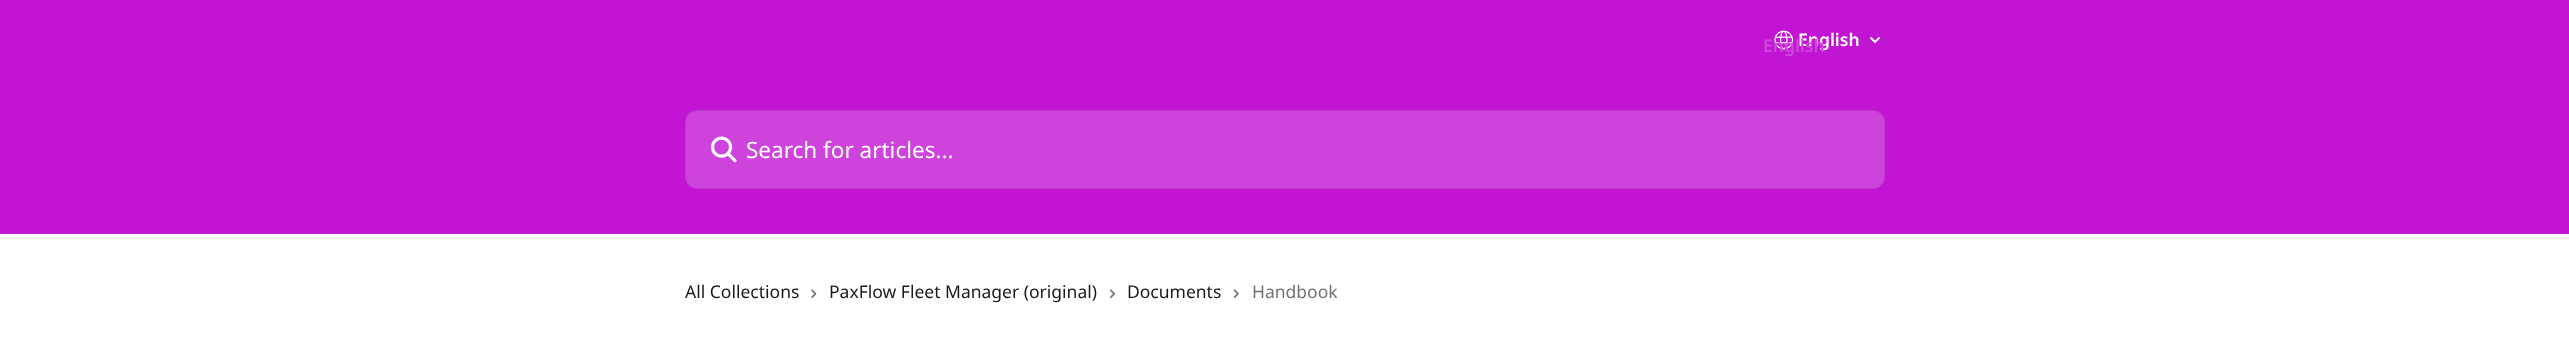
<?xml version="1.0" encoding="UTF-8"?>
<svg xmlns="http://www.w3.org/2000/svg" xmlns:xlink="http://www.w3.org/1999/xlink" width="2569" height="354">
  <rect width="100%" height="100%" fill="#ffffff" />
  <rect width="2569" height="234" fill="#c215d3" />
  <image x="1774" y="30" width="20" height="20" xlink:href="image1.png" />
  <path d="M 1871 38 l 4 4 l 4 -4" fill="none" stroke="#ffffff" stroke-width="1.9" stroke-linecap="round" stroke-linejoin="round" />
  <rect x="685" y="110" width="1200" height="79" rx="13" fill="#ffffff" fill-opacity="0.2" />
  <rect x="685.5" y="110.5" width="1199" height="78" rx="12.5" fill="none" stroke="#000000" stroke-opacity="0.08" />
  <image x="710" y="136" width="27" height="27" xlink:href="image2.png" />
  <image x="811" y="289" width="6" height="9" xlink:href="image3.png" />
  <image x="1110" y="289" width="5" height="9" xlink:href="image4.png" />
  <image x="1233" y="289" width="6" height="9" xlink:href="image5.png" />
  <text x="1798" y="46" style="font-family: Noto Sans; font-size: 17.5px; font-weight: 600; fill: #ffffff">English</text>
  <text x="1763" y="52" style="font-family: Noto Sans; font-size: 17.5px; font-weight: 600; fill: #cf46dc">English</text>
  <text x="746" y="158" style="font-family: Noto Sans; font-size: 22.5px; fill: #ffffff">Search for articles...</text>
  <text x="685" y="298" style="font-family: Noto Sans; font-size: 17.5px; fill: #1a1a1a">All Collections</text>
  <text x="829" y="298" style="font-family: Noto Sans; font-size: 17.5px; fill: #1a1a1a">PaxFlow Fleet Manager (original)</text>
  <text x="1127" y="298" style="font-family: Noto Sans; font-size: 17.5px; fill: #1a1a1a">Documents</text>
  <text x="1252" y="298" style="font-family: Noto Sans; font-size: 17.5px; fill: #737373">Handbook</text>
</svg>
